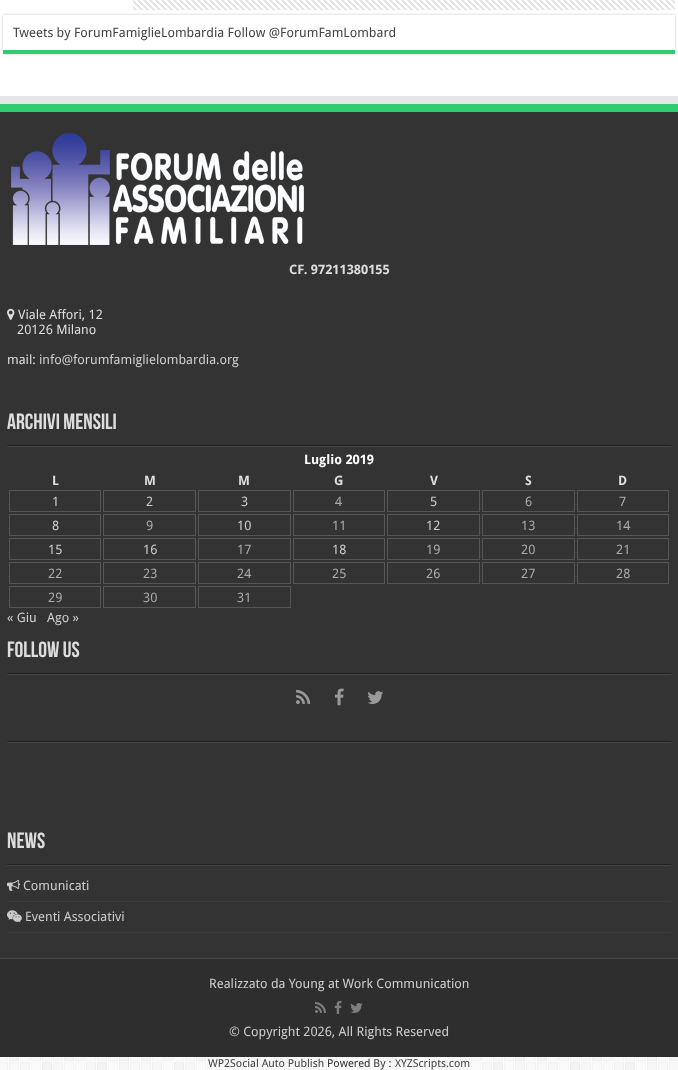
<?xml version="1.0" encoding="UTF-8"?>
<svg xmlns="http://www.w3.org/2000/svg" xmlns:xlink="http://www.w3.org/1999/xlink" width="678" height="1070">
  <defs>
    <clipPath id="clip1"><path d="M 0 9 h 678 v 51 h -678 z m 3 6 h 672 v 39 h -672 z" clip-rule="evenodd" /></clipPath>
  </defs>
  <rect width="100%" height="100%" fill="#ffffff" />
  <image x="0" y="1057" width="678" height="13" xlink:href="image1.png" />
  <g clip-path="url(#clip1)">
    <rect x="3" y="15" width="672" height="39" fill="#cacaca" filter="blur(1.5px)" />
  </g>
  <image x="133" y="0" width="542" height="10" xlink:href="image2.png" />
  <rect x="3" y="50" width="672" height="4" fill="#30cc71" />
  <rect y="96" width="678" height="8" fill="#e6e6e6" />
  <rect y="112" width="678" height="846" fill="#333333" />
  <rect y="104" width="678" height="8" fill="#30cc71" />
  <image x="11" y="133" width="293" height="112" xlink:href="image3.png" />
  <image x="7" y="308" width="8" height="12" xlink:href="image4.png" />
  <rect x="7" y="445" width="664" height="1" fill="#222222" />
  <rect x="7" y="446" width="664" height="1" fill="#444444" />
  <rect x="9.5" y="490.5" width="91" height="21" fill="none" stroke="#555555" />
  <rect x="103.5" y="490.5" width="92" height="21" fill="none" stroke="#555555" />
  <rect x="198.5" y="490.5" width="92" height="21" fill="none" stroke="#555555" />
  <rect x="293.5" y="490.5" width="91" height="21" fill="none" stroke="#555555" />
  <rect x="387.5" y="490.5" width="92" height="21" fill="none" stroke="#555555" />
  <rect x="482.5" y="490.5" width="92" height="21" fill="none" stroke="#555555" />
  <rect x="577.5" y="490.5" width="91" height="21" fill="none" stroke="#555555" />
  <rect x="9.5" y="514.5" width="91" height="21" fill="none" stroke="#555555" />
  <rect x="103.5" y="514.5" width="92" height="21" fill="none" stroke="#555555" />
  <rect x="198.5" y="514.5" width="92" height="21" fill="none" stroke="#555555" />
  <rect x="293.5" y="514.5" width="91" height="21" fill="none" stroke="#555555" />
  <rect x="387.5" y="514.5" width="92" height="21" fill="none" stroke="#555555" />
  <rect x="482.5" y="514.5" width="92" height="21" fill="none" stroke="#555555" />
  <rect x="577.5" y="514.5" width="91" height="21" fill="none" stroke="#555555" />
  <rect x="9.5" y="538.5" width="91" height="21" fill="none" stroke="#555555" />
  <rect x="103.5" y="538.5" width="92" height="21" fill="none" stroke="#555555" />
  <rect x="198.5" y="538.5" width="92" height="21" fill="none" stroke="#555555" />
  <rect x="293.5" y="538.5" width="91" height="21" fill="none" stroke="#555555" />
  <rect x="387.5" y="538.5" width="92" height="21" fill="none" stroke="#555555" />
  <rect x="482.5" y="538.5" width="92" height="21" fill="none" stroke="#555555" />
  <rect x="577.5" y="538.5" width="91" height="21" fill="none" stroke="#555555" />
  <rect x="9.5" y="562.5" width="91" height="21" fill="none" stroke="#555555" />
  <rect x="103.5" y="562.5" width="92" height="21" fill="none" stroke="#555555" />
  <rect x="198.5" y="562.5" width="92" height="21" fill="none" stroke="#555555" />
  <rect x="293.5" y="562.5" width="91" height="21" fill="none" stroke="#555555" />
  <rect x="387.5" y="562.5" width="92" height="21" fill="none" stroke="#555555" />
  <rect x="482.5" y="562.5" width="92" height="21" fill="none" stroke="#555555" />
  <rect x="577.5" y="562.5" width="91" height="21" fill="none" stroke="#555555" />
  <rect x="9.5" y="586.5" width="91" height="21" fill="none" stroke="#555555" />
  <rect x="103.5" y="586.5" width="92" height="21" fill="none" stroke="#555555" />
  <rect x="198.5" y="586.5" width="92" height="21" fill="none" stroke="#555555" />
  <rect x="7" y="673" width="664" height="1" fill="#222222" />
  <rect x="7" y="674" width="664" height="1" fill="#444444" />
  <image x="296" y="689" width="15" height="15" xlink:href="image5.png" />
  <image x="334" y="688" width="10" height="18" xlink:href="image6.png" />
  <image x="367" y="691" width="16" height="13" xlink:href="image7.png" />
  <rect x="7" y="741" width="664" height="1" fill="#222222" />
  <rect x="7" y="742" width="664" height="1" fill="#444444" />
  <rect x="7" y="864" width="664" height="1" fill="#222222" />
  <rect x="7" y="865" width="664" height="1" fill="#444444" />
  <rect x="7" y="901" width="664" height="1" fill="#3c3c3c" />
  <image x="7" y="879" width="13" height="12" xlink:href="image8.png" />
  <rect x="7" y="932" width="664" height="1" fill="#3c3c3c" />
  <image x="7" y="910" width="15" height="13" xlink:href="image9.png" />
  <rect y="959" width="678" height="98" fill="#2e2e2e" />
  <rect y="958" width="678" height="1" fill="#444444" />
  <image x="315" y="1002" width="11" height="11" xlink:href="image10.png" />
  <image x="334" y="1001" width="8" height="13" xlink:href="image11.png" />
  <image x="350" y="1003" width="13" height="10" xlink:href="image12.png" />
  <text x="13" y="37" style="font-family: Droid Sans; font-size: 13px; fill: #444444">Tweets by ForumFamiglieLombardia Follow @ForumFamLombard</text>
  <text x="289" y="274" style="font-family: Droid Sans; font-size: 13px; font-weight: bold; fill: #dddddd">CF. 97211380155</text>
  <text x="18" y="319" style="font-family: Droid Sans; font-size: 13px; fill: #dddddd">Viale Affori, 12</text>
  <text x="17" y="334" style="font-family: Droid Sans; font-size: 13px; fill: #dddddd">20126 Milano</text>
  <text x="7" y="364" style="font-family: Droid Sans; font-size: 13px; fill: #dddddd">mail:</text>
  <text x="39" y="364" style="font-family: Droid Sans; font-size: 13px; fill: #cccccc">info@forumfamiglielombardia.org</text>
  <text x="7" y="429" style="font-family: Bebas Neue; font-size: 22px; font-weight: bold; fill: #dddddd">Archivi mensili</text>
  <text x="304" y="464" style="font-family: Droid Sans; font-size: 13px; font-weight: bold; fill: #ffffff">Luglio 2019</text>
  <text x="52" y="485" style="font-family: Droid Sans; font-size: 13px; font-weight: bold; fill: #dddddd">L</text>
  <text x="144" y="485" style="font-family: Droid Sans; font-size: 13px; font-weight: bold; fill: #dddddd">M</text>
  <text x="238" y="485" style="font-family: Droid Sans; font-size: 13px; font-weight: bold; fill: #dddddd">M</text>
  <text x="334" y="485" style="font-family: Droid Sans; font-size: 13px; font-weight: bold; fill: #dddddd">G</text>
  <text x="430" y="485" style="font-family: Droid Sans; font-size: 13px; font-weight: bold; fill: #dddddd">V</text>
  <text x="525" y="485" style="font-family: Droid Sans; font-size: 13px; font-weight: bold; fill: #dddddd">S</text>
  <text x="618" y="485" style="font-family: Droid Sans; font-size: 13px; font-weight: bold; fill: #dddddd">D</text>
  <text x="52" y="506" style="font-family: Droid Sans; font-size: 13px; fill: #cccccc">1</text>
  <text x="146" y="506" style="font-family: Droid Sans; font-size: 13px; fill: #cccccc">2</text>
  <text x="241" y="506" style="font-family: Droid Sans; font-size: 13px; fill: #cccccc">3</text>
  <text x="335" y="506" style="font-family: Droid Sans; font-size: 13px; fill: #aaaaaa">4</text>
  <text x="430" y="506" style="font-family: Droid Sans; font-size: 13px; fill: #cccccc">5</text>
  <text x="525" y="506" style="font-family: Droid Sans; font-size: 13px; fill: #aaaaaa">6</text>
  <text x="619" y="506" style="font-family: Droid Sans; font-size: 13px; fill: #aaaaaa">7</text>
  <text x="52" y="530" style="font-family: Droid Sans; font-size: 13px; fill: #cccccc">8</text>
  <text x="146" y="530" style="font-family: Droid Sans; font-size: 13px; fill: #aaaaaa">9</text>
  <text x="237" y="530" style="font-family: Droid Sans; font-size: 13px; fill: #cccccc">10</text>
  <text x="332" y="530" style="font-family: Droid Sans; font-size: 13px; fill: #aaaaaa">11</text>
  <text x="426" y="530" style="font-family: Droid Sans; font-size: 13px; fill: #cccccc">12</text>
  <text x="521" y="530" style="font-family: Droid Sans; font-size: 13px; fill: #aaaaaa">13</text>
  <text x="616" y="530" style="font-family: Droid Sans; font-size: 13px; fill: #aaaaaa">14</text>
  <text x="48" y="554" style="font-family: Droid Sans; font-size: 13px; fill: #cccccc">15</text>
  <text x="143" y="554" style="font-family: Droid Sans; font-size: 13px; fill: #cccccc">16</text>
  <text x="237" y="554" style="font-family: Droid Sans; font-size: 13px; fill: #aaaaaa">17</text>
  <text x="332" y="554" style="font-family: Droid Sans; font-size: 13px; fill: #cccccc">18</text>
  <text x="426" y="554" style="font-family: Droid Sans; font-size: 13px; fill: #aaaaaa">19</text>
  <text x="521" y="554" style="font-family: Droid Sans; font-size: 13px; fill: #aaaaaa">20</text>
  <text x="616" y="554" style="font-family: Droid Sans; font-size: 13px; fill: #aaaaaa">21</text>
  <text x="48" y="578" style="font-family: Droid Sans; font-size: 13px; fill: #aaaaaa">22</text>
  <text x="143" y="578" style="font-family: Droid Sans; font-size: 13px; fill: #aaaaaa">23</text>
  <text x="237" y="578" style="font-family: Droid Sans; font-size: 13px; fill: #aaaaaa">24</text>
  <text x="332" y="578" style="font-family: Droid Sans; font-size: 13px; fill: #aaaaaa">25</text>
  <text x="426" y="578" style="font-family: Droid Sans; font-size: 13px; fill: #aaaaaa">26</text>
  <text x="521" y="578" style="font-family: Droid Sans; font-size: 13px; fill: #aaaaaa">27</text>
  <text x="616" y="578" style="font-family: Droid Sans; font-size: 13px; fill: #aaaaaa">28</text>
  <text x="48" y="602" style="font-family: Droid Sans; font-size: 13px; fill: #aaaaaa">29</text>
  <text x="143" y="602" style="font-family: Droid Sans; font-size: 13px; fill: #aaaaaa">30</text>
  <text x="237" y="602" style="font-family: Droid Sans; font-size: 13px; fill: #aaaaaa">31</text>
  <text x="7" y="622" style="font-family: Droid Sans; font-size: 13px; fill: #cccccc">« Giu</text>
  <text x="47" y="622" style="font-family: Droid Sans; font-size: 13px; fill: #cccccc">Ago »</text>
  <text x="7" y="657" style="font-family: Bebas Neue; font-size: 22px; font-weight: bold; fill: #dddddd">Follow Us</text>
  <text x="7" y="848" style="font-family: Bebas Neue; font-size: 22px; font-weight: bold; fill: #dddddd">News</text>
  <text x="23" y="890" style="font-family: Droid Sans; font-size: 13px; fill: #cccccc">Comunicati</text>
  <text x="25" y="921" style="font-family: Droid Sans; font-size: 13px; fill: #cccccc">Eventi Associativi</text>
  <text x="209" y="988" style="font-family: Droid Sans; font-size: 13px; fill: #cccccc">Realizzato da Young at Work Communication</text>
  <text x="229" y="1036" style="font-family: Droid Sans; font-size: 13px; fill: #cccccc">© Copyright 2026, All Rights Reserved</text>
  <text x="208" y="1067" style="font-family: Droid Sans; font-size: 11px; fill: #444444">WP2Social Auto Publish</text>
  <text x="327" y="1067" style="font-family: Droid Sans; font-size: 11px; fill: #333333">Powered By :</text>
  <text x="395" y="1067" style="font-family: Droid Sans; font-size: 11px; fill: #444444">XYZScripts.com</text>
</svg>
